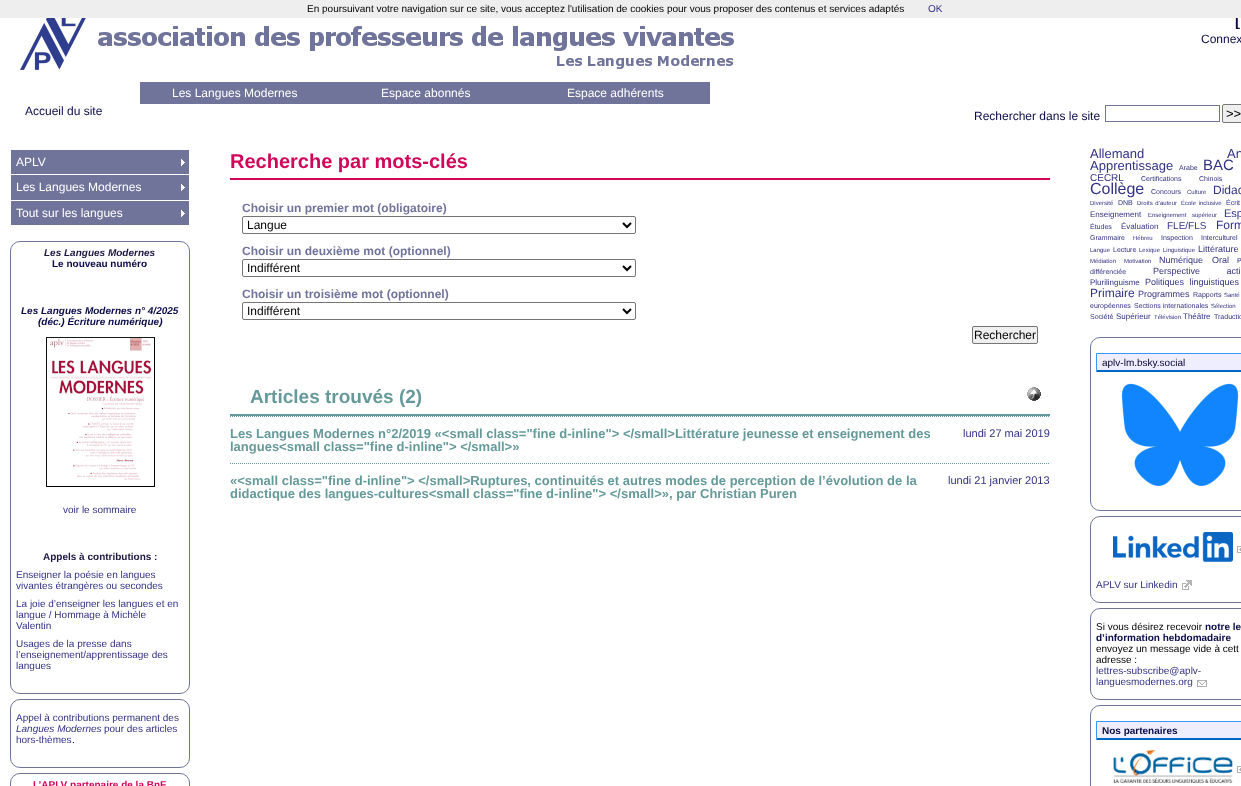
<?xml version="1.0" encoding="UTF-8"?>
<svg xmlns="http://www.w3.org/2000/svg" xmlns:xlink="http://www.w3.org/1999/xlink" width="1241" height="786">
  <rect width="100%" height="100%" fill="#ffffff" />
  <image x="98" y="26" width="636" height="43" xlink:href="image1.png" />
  <image x="20" y="18" width="66" height="52" xlink:href="image2.png" />
  <rect x="140" y="82" width="570" height="22" fill="#70749a" />
  <rect x="1105.5" y="105.5" width="114" height="16" fill="none" stroke="#70749a" />
  <rect x="1222.5" y="104.5" width="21" height="18" rx="1.5" fill="#efefef" stroke="#767676" />
  <rect x="11" y="150" width="178" height="24" fill="#70749a" />
  <image x="181" y="159" width="4" height="7" xlink:href="image3.png" />
  <rect x="11" y="175" width="178" height="25" fill="#70749a" />
  <image x="181" y="184" width="4" height="7" xlink:href="image3.png" />
  <rect x="11" y="201" width="178" height="24" fill="#70749a" />
  <image x="181" y="210" width="4" height="7" xlink:href="image3.png" />
  <rect x="10.5" y="241.5" width="179" height="452" rx="9.5" fill="none" stroke="#70749a" />
  <image x="46" y="337" width="109" height="150" xlink:href="image4.png" />
  <rect x="10.5" y="699.5" width="179" height="68" rx="9.5" fill="none" stroke="#70749a" />
  <rect x="10.5" y="773.5" width="179" height="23" rx="9.5" fill="none" stroke="#70749a" />
  <rect x="230" y="178" width="820" height="2" fill="#d1065a" />
  <rect x="242.5" y="216.5" width="393" height="17" rx="1.5" fill="none" stroke="#767676" />
  <path d="M 623 223 l 4 4 l 4 -4" fill="none" stroke="#000000" stroke-width="2" />
  <rect x="242.5" y="259.5" width="393" height="17" rx="1.5" fill="none" stroke="#767676" />
  <path d="M 623 266 l 4 4 l 4 -4" fill="none" stroke="#000000" stroke-width="2" />
  <rect x="242.5" y="302.5" width="393" height="17" rx="1.5" fill="none" stroke="#767676" />
  <path d="M 623 309 l 4 4 l 4 -4" fill="none" stroke="#000000" stroke-width="2" />
  <rect x="972.5" y="326.5" width="65" height="17" rx="1.5" fill="#efefef" stroke="#767676" />
  <rect x="230" y="414" width="820" height="2" fill="#669999" />
  <image x="1027" y="387" width="14" height="14" xlink:href="image5.png" />
  <path d="M 230 416.5 h 820" fill="none" stroke="#669999" stroke-dasharray="1 1" />
  <path d="M 230 463.5 h 820" fill="none" stroke="#669999" stroke-dasharray="1 1" />
  <rect x="1090.5" y="337.5" width="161" height="173" rx="9.5" fill="none" stroke="#70749a" />
  <rect x="1097" y="354" width="144" height="16" fill="#eeeeff" />
  <path d="M 1096 353 h 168 l -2 1 h -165 z" fill="#3399ff" />
  <path d="M 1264 372 h -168 l 1 -2 h 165 z" fill="#0066cc" />
  <path d="M 1096 372 v -19 l 1 1 v 16 z" fill="#3399ff" />
  <image x="1121" y="383" width="118" height="104" xlink:href="image6.png" />
  <rect x="1090.5" y="516.5" width="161" height="86" rx="9.5" fill="none" stroke="#70749a" />
  <image x="1237" y="546" width="4" height="7" xlink:href="image7.png" />
  <image x="1113" y="532" width="120" height="30" xlink:href="image8.png" />
  <image x="1182" y="580" width="10" height="10" xlink:href="image9.png" />
  <rect x="1090.5" y="608.5" width="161" height="91" rx="9.5" fill="none" stroke="#70749a" />
  <image x="1197" y="680" width="10" height="7" xlink:href="image10.png" />
  <rect x="1090.5" y="705.5" width="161" height="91" rx="9.5" fill="none" stroke="#70749a" />
  <rect x="1097" y="722" width="144" height="16" fill="#eeeeff" />
  <path d="M 1096 721 h 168 l -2 1 h -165 z" fill="#3399ff" />
  <path d="M 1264 740 h -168 l 1 -2 h 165 z" fill="#0066cc" />
  <path d="M 1096 740 v -19 l 1 1 v 16 z" fill="#3399ff" />
  <image x="1237" y="766" width="4" height="7" xlink:href="image7.png" />
  <image x="1113" y="750" width="120" height="33" xlink:href="image11.png" />
  <text x="1235" y="26" style="font-family: Liberation Sans; font-size: 15px; font-weight: bold; fill: #0a0b49">[</text>
  <rect width="1241" height="18" fill="#eeeeee" />
  <text x="928" y="12" style="font-family: Liberation Sans; font-size: 10px; fill: #323284">OK</text>
  <text x="307" y="12" style="font-family: Liberation Sans; font-size: 10px; fill: #000000">En poursuivant votre navigation sur ce site, vous acceptez l'utilisation de cookies pour vous proposer des contenus et services adaptés</text>
  <text x="1201" y="43" style="font-family: Liberation Sans; font-size: 12px; fill: #0a0b49">Connex</text>
  <text x="172" y="97" style="font-family: Liberation Sans; font-size: 12px; fill: #ffffff">Les Langues Modernes</text>
  <text x="381" y="97" style="font-family: Liberation Sans; font-size: 12px; fill: #ffffff">Espace abonnés</text>
  <text x="567" y="97" style="font-family: Liberation Sans; font-size: 12px; fill: #ffffff">Espace adhérents</text>
  <text x="25" y="115" style="font-family: Liberation Sans; font-size: 12px; fill: #0a0b49">Accueil du site</text>
  <text x="974" y="120" style="font-family: Liberation Sans; font-size: 12px; fill: #0a0b49">Rechercher dans le site</text>
  <text x="1226" y="118" style="font-family: Liberation Sans; font-size: 13px; fill: #000000">&gt;&gt;</text>
  <text x="16" y="166" style="font-family: Liberation Sans; font-size: 12px; fill: #ffffff">APLV</text>
  <text x="16" y="191" style="font-family: Liberation Sans; font-size: 12px; fill: #ffffff">Les Langues Modernes</text>
  <text x="16" y="217" style="font-family: Liberation Sans; font-size: 12px; fill: #ffffff">Tout sur les langues</text>
  <text x="44" y="256" style="font-family: Liberation Sans; font-size: 10px; font-weight: bold; font-style: italic; fill: #1e1741">Les Langues Modernes</text>
  <text x="52" y="267" style="font-family: Liberation Sans; font-size: 10px; font-weight: bold; fill: #0a0b49">Le nouveau numéro</text>
  <text x="21" y="314" style="font-family: Liberation Sans; font-size: 10px; font-weight: bold; font-style: italic; fill: #0a0b49">Les Langues Modernes n° 4/2025</text>
  <text x="38" y="325" style="font-family: Liberation Sans; font-size: 10px; font-weight: bold; font-style: italic; fill: #0a0b49">(déc.) Écriture numérique)</text>
  <text x="63" y="513" style="font-family: Liberation Sans; font-size: 10px; fill: #323284">voir le sommaire</text>
  <text x="43" y="560" style="font-family: Liberation Sans; font-size: 10px; font-weight: bold; fill: #1e1741">Appels à contributions :</text>
  <text x="16" y="578" style="font-family: Liberation Sans; font-size: 10px; fill: #323284">Enseigner la poésie en langues</text>
  <text x="16" y="589" style="font-family: Liberation Sans; font-size: 10px; fill: #323284">vivantes étrangères ou secondes</text>
  <text x="16" y="607" style="font-family: Liberation Sans; font-size: 10px; fill: #323284">La joie d’enseigner les langues et en</text>
  <text x="16" y="618" style="font-family: Liberation Sans; font-size: 10px; fill: #323284">langue / Hommage à Michèle</text>
  <text x="16" y="629" style="font-family: Liberation Sans; font-size: 10px; fill: #323284">Valentin</text>
  <text x="16" y="647" style="font-family: Liberation Sans; font-size: 10px; fill: #323284">Usages de la presse dans</text>
  <text x="16" y="658" style="font-family: Liberation Sans; font-size: 10px; fill: #323284">l’enseignement/apprentissage des</text>
  <text x="16" y="669" style="font-family: Liberation Sans; font-size: 10px; fill: #323284">langues</text>
  <text x="16" y="721" style="font-family: Liberation Sans; font-size: 10px; fill: #323284">Appel à contributions permanent des</text>
  <text x="16" y="732" style="font-family: Liberation Sans; font-size: 10px; font-style: italic; fill: #323284">Langues Modernes</text>
  <text x="104" y="732" style="font-family: Liberation Sans; font-size: 10px; fill: #323284">pour des articles</text>
  <text x="16" y="743" style="font-family: Liberation Sans; font-size: 10px; fill: #323284">hors-thèmes</text>
  <text x="72" y="743" style="font-family: Liberation Sans; font-size: 10px; fill: #000000">.</text>
  <text x="33" y="788" style="font-family: Liberation Sans; font-size: 10px; font-weight: bold; fill: #d1065a">L’APLV partenaire de la BnF</text>
  <text x="230" y="168" style="font-family: Liberation Sans; font-size: 20px; font-weight: bold; fill: #d1065a">Recherche par mots-clés</text>
  <text x="242" y="212" style="font-family: Liberation Sans; font-size: 12px; font-weight: bold; fill: #70749a">Choisir un premier mot (obligatoire)</text>
  <text x="247" y="229" style="font-family: Liberation Sans; font-size: 12px; fill: #000000">Langue</text>
  <text x="242" y="255" style="font-family: Liberation Sans; font-size: 12px; font-weight: bold; fill: #70749a">Choisir un deuxième mot (optionnel)</text>
  <text x="247" y="272" style="font-family: Liberation Sans; font-size: 12px; fill: #000000">Indifférent</text>
  <text x="242" y="298" style="font-family: Liberation Sans; font-size: 12px; font-weight: bold; fill: #70749a">Choisir un troisième mot (optionnel)</text>
  <text x="247" y="315" style="font-family: Liberation Sans; font-size: 12px; fill: #000000">Indifférent</text>
  <text x="974" y="339" style="font-family: Liberation Sans; font-size: 12px; fill: #000000">Rechercher</text>
  <text x="250" y="403" style="font-family: Liberation Sans; font-size: 19px; font-weight: bold; fill: #669999">Articles trouvés (2)</text>
  <text x="230" y="438" style="font-family: Liberation Sans; font-size: 13px; font-weight: bold; fill: #669999">Les Langues Modernes n°2/2019 «&lt;small class="fine d-inline"&gt; &lt;/small&gt;Littérature jeunesse et enseignement des</text>
  <text x="963" y="437" style="font-family: Liberation Sans; font-size: 11px; fill: #323284">lundi 27 mai 2019</text>
  <text x="230" y="451" style="font-family: Liberation Sans; font-size: 13px; font-weight: bold; fill: #669999">langues&lt;small class="fine d-inline"&gt; &lt;/small&gt;»</text>
  <text x="230" y="485" style="font-family: Liberation Sans; font-size: 13px; font-weight: bold; fill: #669999">«&lt;small class="fine d-inline"&gt; &lt;/small&gt;Ruptures, continuités et autres modes de perception de l’évolution de la</text>
  <text x="948" y="484" style="font-family: Liberation Sans; font-size: 11px; fill: #323284">lundi 21 janvier 2013</text>
  <text x="230" y="498" style="font-family: Liberation Sans; font-size: 13px; font-weight: bold; fill: #669999">didactique des langues-cultures&lt;small class="fine d-inline"&gt; &lt;/small&gt;», par Christian Puren</text>
  <text x="1090" y="158" style="font-family: Liberation Sans; font-size: 13px; fill: #323284">Allemand</text>
  <text x="1227" y="158" style="font-family: Liberation Sans; font-size: 13px; fill: #323284">An</text>
  <text x="1090" y="170" style="font-family: Liberation Sans; font-size: 13px; fill: #323284">Apprentissage</text>
  <text x="1179" y="170" style="font-family: Liberation Sans; font-size: 7px; fill: #323284">Arabe</text>
  <text x="1203" y="170" style="font-family: Liberation Sans; font-size: 15px; fill: #323284">BAC</text>
  <text x="1090" y="181" style="font-family: Liberation Sans; font-size: 10px; fill: #323284">CECRL</text>
  <text x="1141" y="181" style="font-family: Liberation Sans; font-size: 7px; fill: #323284">Certifications</text>
  <text x="1199" y="181" style="font-family: Liberation Sans; font-size: 7px; fill: #323284">Chinois</text>
  <text x="1090" y="194" style="font-family: Liberation Sans; font-size: 16px; fill: #323284">Collège</text>
  <text x="1151" y="194" style="font-family: Liberation Sans; font-size: 7px; fill: #323284">Concours</text>
  <text x="1187" y="194" style="font-family: Liberation Sans; font-size: 6px; fill: #323284">Culture</text>
  <text x="1213" y="194" style="font-family: Liberation Sans; font-size: 12px; fill: #323284">Didac</text>
  <text x="1090" y="205" style="font-family: Liberation Sans; font-size: 6px; fill: #323284">Diversité</text>
  <text x="1118" y="205" style="font-family: Liberation Sans; font-size: 7px; fill: #323284">DNB</text>
  <text x="1137" y="205" word-spacing="1" style="font-family: Liberation Sans; font-size: 6px; fill: #323284">Droits d’auteur</text>
  <text x="1181" y="205" word-spacing="1" style="font-family: Liberation Sans; font-size: 6px; fill: #323284">École inclusive</text>
  <text x="1226" y="205" style="font-family: Liberation Sans; font-size: 7px; fill: #323284">Écrit</text>
  <text x="1090" y="217" style="font-family: Liberation Sans; font-size: 8px; fill: #323284">Enseignement</text>
  <text x="1148" y="217" word-spacing="4" style="font-family: Liberation Sans; font-size: 6px; fill: #323284">Enseignement supérieur</text>
  <text x="1224" y="217" style="font-family: Liberation Sans; font-size: 11px; fill: #323284">Esp</text>
  <text x="1090" y="229" style="font-family: Liberation Sans; font-size: 7px; fill: #323284">Études</text>
  <text x="1121" y="229" style="font-family: Liberation Sans; font-size: 8px; fill: #323284">Évaluation</text>
  <text x="1167" y="229" style="font-family: Liberation Sans; font-size: 10px; fill: #323284">FLE/FLS</text>
  <text x="1216" y="229" style="font-family: Liberation Sans; font-size: 12px; fill: #323284">Form</text>
  <text x="1090" y="240" style="font-family: Liberation Sans; font-size: 7px; fill: #323284">Grammaire</text>
  <text x="1133" y="240" style="font-family: Liberation Sans; font-size: 6px; fill: #323284">Hébreu</text>
  <text x="1161" y="240" style="font-family: Liberation Sans; font-size: 7px; fill: #323284">Inspection</text>
  <text x="1201" y="240" style="font-family: Liberation Sans; font-size: 7px; fill: #323284">Interculturel</text>
  <text x="1090" y="252" style="font-family: Liberation Sans; font-size: 6px; fill: #323284">Langue</text>
  <text x="1113" y="252" style="font-family: Liberation Sans; font-size: 7px; fill: #323284">Lecture</text>
  <text x="1139" y="252" style="font-family: Liberation Sans; font-size: 6px; fill: #323284">Lexique</text>
  <text x="1163" y="252" style="font-family: Liberation Sans; font-size: 6px; fill: #323284">Linguistique</text>
  <text x="1198" y="252" style="font-family: Liberation Sans; font-size: 9px; fill: #323284">Littérature</text>
  <text x="1090" y="263" style="font-family: Liberation Sans; font-size: 6px; fill: #323284">Médiation</text>
  <text x="1124" y="263" style="font-family: Liberation Sans; font-size: 6px; fill: #323284">Motivation</text>
  <text x="1159" y="263" style="font-family: Liberation Sans; font-size: 9px; fill: #323284">Numérique</text>
  <text x="1212" y="263" style="font-family: Liberation Sans; font-size: 9px; fill: #323284">Oral</text>
  <text x="1237" y="263" style="font-family: Liberation Sans; font-size: 7px; fill: #323284">P</text>
  <text x="1090" y="274" style="font-family: Liberation Sans; font-size: 7px; fill: #323284">différenciée</text>
  <text x="1153" y="274" word-spacing="24" style="font-family: Liberation Sans; font-size: 9px; fill: #323284">Perspective acti</text>
  <text x="1090" y="285" style="font-family: Liberation Sans; font-size: 8px; fill: #323284">Plurilinguisme</text>
  <text x="1145" y="285" word-spacing="3" style="font-family: Liberation Sans; font-size: 9px; fill: #323284">Politiques linguistiques</text>
  <text x="1090" y="297" style="font-family: Liberation Sans; font-size: 12px; fill: #323284">Primaire</text>
  <text x="1138" y="297" style="font-family: Liberation Sans; font-size: 9px; fill: #323284">Programmes</text>
  <text x="1193" y="297" style="font-family: Liberation Sans; font-size: 7px; fill: #323284">Rapports</text>
  <text x="1224" y="297" style="font-family: Liberation Sans; font-size: 6px; fill: #323284">Santé</text>
  <text x="1090" y="308" style="font-family: Liberation Sans; font-size: 7px; fill: #323284">européennes</text>
  <text x="1134" y="308" style="font-family: Liberation Sans; font-size: 7px; fill: #323284">Sections internationales</text>
  <text x="1211" y="308" style="font-family: Liberation Sans; font-size: 6px; fill: #323284">Sélection</text>
  <text x="1090" y="319" style="font-family: Liberation Sans; font-size: 7px; fill: #323284">Société</text>
  <text x="1116" y="319" style="font-family: Liberation Sans; font-size: 8px; fill: #323284">Supérieur</text>
  <text x="1154" y="319" style="font-family: Liberation Sans; font-size: 6px; fill: #323284">Télévision</text>
  <text x="1183" y="319" style="font-family: Liberation Sans; font-size: 8px; fill: #323284">Théâtre</text>
  <text x="1214" y="319" style="font-family: Liberation Sans; font-size: 7px; fill: #323284">Traductio</text>
  <text x="1102" y="366" style="font-family: Liberation Sans; font-size: 10px; fill: #000033">aplv-lm.bsky.social</text>
  <text x="1096" y="588" style="font-family: Liberation Sans; font-size: 10px; fill: #323284">APLV sur Linkedin</text>
  <text x="1096" y="630" style="font-family: Liberation Sans; font-size: 10px; fill: #000000">Si vous désirez recevoir</text>
  <text x="1205" y="630" style="font-family: Liberation Sans; font-size: 10px; font-weight: bold; fill: #0a0b49">notre le</text>
  <text x="1096" y="641" style="font-family: Liberation Sans; font-size: 10px; font-weight: bold; fill: #0a0b49">d’information hebdomadaire</text>
  <text x="1096" y="652" style="font-family: Liberation Sans; font-size: 10px; fill: #000000">envoyez un message vide à cett</text>
  <text x="1096" y="663" style="font-family: Liberation Sans; font-size: 10px; fill: #000000">adresse :</text>
  <text x="1096" y="674" style="font-family: Liberation Sans; font-size: 10px; fill: #323284">lettres-subscribe@aplv-</text>
  <text x="1096" y="685" style="font-family: Liberation Sans; font-size: 10px; fill: #323284">languesmodernes.org</text>
  <text x="1102" y="734" style="font-family: Liberation Sans; font-size: 10px; font-weight: bold; fill: #0a0b49">Nos partenaires</text>
</svg>
